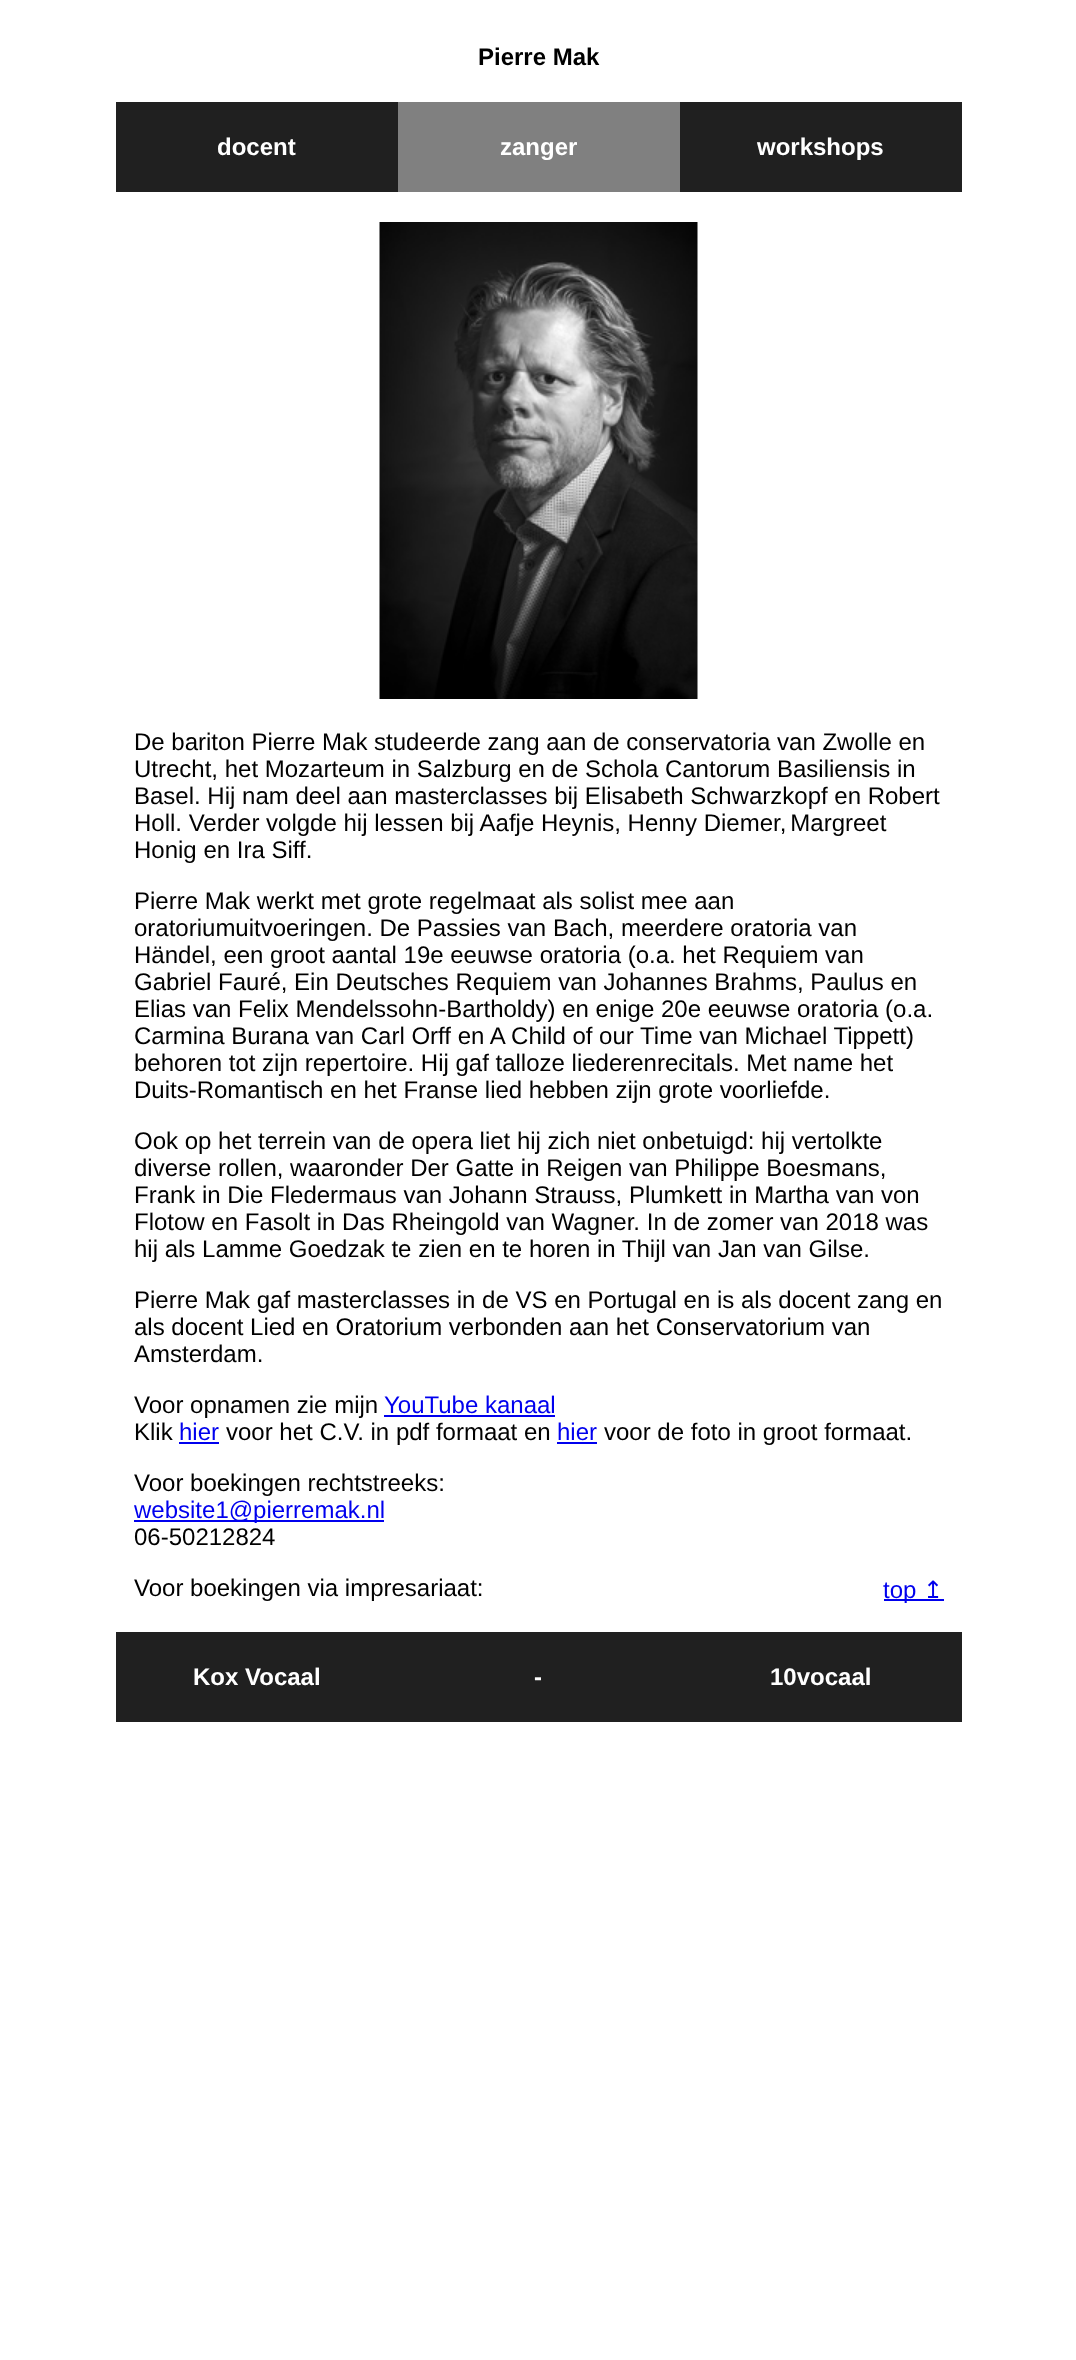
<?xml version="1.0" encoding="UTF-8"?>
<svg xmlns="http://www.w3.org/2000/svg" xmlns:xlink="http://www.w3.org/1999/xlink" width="1076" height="2360">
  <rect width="100%" height="100%" fill="#ffffff" />
  <rect x="116" y="102" width="282" height="90" fill="#202020" />
  <rect x="398" y="102" width="282" height="90" fill="#808080" />
  <rect x="680" y="102" width="282" height="90" fill="#202020" />
  <image x="379" y="222" width="319" height="477" xlink:href="image1.png" />
  <rect x="384" y="1415" width="171" height="2" fill="#0000ee" />
  <rect x="179" y="1442" width="40" height="2" fill="#0000ee" />
  <rect x="557" y="1442" width="40" height="2" fill="#0000ee" />
  <rect x="134" y="1520" width="250" height="2" fill="#0000ee" />
  <rect x="884" y="1599" width="60" height="2" fill="#0000ee" />
  <rect x="116" y="1632" width="846" height="90" fill="#202020" />
  <text x="478" y="65" style="font-family: Liberation Sans; font-size: 24px; font-weight: bold; fill: #000000">Pierre Mak</text>
  <text x="217" y="155" style="font-family: Liberation Sans; font-size: 24px; font-weight: bold; fill: #ffffff">docent</text>
  <text x="500" y="155" style="font-family: Liberation Sans; font-size: 24px; font-weight: bold; fill: #ffffff">zanger</text>
  <text x="757" y="155" style="font-family: Liberation Sans; font-size: 24px; font-weight: bold; fill: #ffffff">workshops</text>
  <text x="134" y="750" style="font-family: Liberation Sans; font-size: 24px; fill: #000000">De bariton Pierre Mak studeerde zang aan de conservatoria van Zwolle en</text>
  <text x="134" y="777" style="font-family: Liberation Sans; font-size: 24px; fill: #000000">Utrecht, het Mozarteum in Salzburg en de Schola Cantorum Basiliensis in</text>
  <text x="134" y="804" style="font-family: Liberation Sans; font-size: 24px; fill: #000000">Basel. Hij nam deel aan masterclasses bij Elisabeth Schwarzkopf en Robert</text>
  <text x="134" y="831" style="font-family: Liberation Sans; font-size: 24px; fill: #000000">Holl. Verder volgde hij lessen bij Aafje Heynis, Henny Diemer, Margreet</text>
  <text x="134" y="858" style="font-family: Liberation Sans; font-size: 24px; fill: #000000">Honig en Ira Siff.</text>
  <text x="134" y="909" style="font-family: Liberation Sans; font-size: 24px; fill: #000000">Pierre Mak werkt met grote regelmaat als solist mee aan</text>
  <text x="134" y="936" style="font-family: Liberation Sans; font-size: 24px; fill: #000000">oratoriumuitvoeringen. De Passies van Bach, meerdere oratoria van</text>
  <text x="134" y="963" style="font-family: Liberation Sans; font-size: 24px; fill: #000000">Händel, een groot aantal 19e eeuwse oratoria (o.a. het Requiem van</text>
  <text x="134" y="990" style="font-family: Liberation Sans; font-size: 24px; fill: #000000">Gabriel Fauré, Ein Deutsches Requiem van Johannes Brahms, Paulus en</text>
  <text x="134" y="1017" style="font-family: Liberation Sans; font-size: 24px; fill: #000000">Elias van Felix Mendelssohn-Bartholdy) en enige 20e eeuwse oratoria (o.a.</text>
  <text x="134" y="1044" style="font-family: Liberation Sans; font-size: 24px; fill: #000000">Carmina Burana van Carl Orff en A Child of our Time van Michael Tippett)</text>
  <text x="134" y="1071" style="font-family: Liberation Sans; font-size: 24px; fill: #000000">behoren tot zijn repertoire. Hij gaf talloze liederenrecitals. Met name het</text>
  <text x="134" y="1098" style="font-family: Liberation Sans; font-size: 24px; fill: #000000">Duits-Romantisch en het Franse lied hebben zijn grote voorliefde.</text>
  <text x="134" y="1149" style="font-family: Liberation Sans; font-size: 24px; fill: #000000">Ook op het terrein van de opera liet hij zich niet onbetuigd: hij vertolkte</text>
  <text x="134" y="1176" style="font-family: Liberation Sans; font-size: 24px; fill: #000000">diverse rollen, waaronder Der Gatte in Reigen van Philippe Boesmans,</text>
  <text x="134" y="1203" style="font-family: Liberation Sans; font-size: 24px; fill: #000000">Frank in Die Fledermaus van Johann Strauss, Plumkett in Martha van von</text>
  <text x="134" y="1230" style="font-family: Liberation Sans; font-size: 24px; fill: #000000">Flotow en Fasolt in Das Rheingold van Wagner. In de zomer van 2018 was</text>
  <text x="134" y="1257" style="font-family: Liberation Sans; font-size: 24px; fill: #000000">hij als Lamme Goedzak te zien en te horen in Thijl van Jan van Gilse.</text>
  <text x="134" y="1308" style="font-family: Liberation Sans; font-size: 24px; fill: #000000">Pierre Mak gaf masterclasses in de VS en Portugal en is als docent zang en</text>
  <text x="134" y="1335" style="font-family: Liberation Sans; font-size: 24px; fill: #000000">als docent Lied en Oratorium verbonden aan het Conservatorium van</text>
  <text x="134" y="1362" style="font-family: Liberation Sans; font-size: 24px; fill: #000000">Amsterdam.</text>
  <text x="134" y="1413" style="font-family: Liberation Sans; font-size: 24px; fill: #000000">Voor opnamen zie mijn</text>
  <text x="384" y="1413" style="font-family: Liberation Sans; font-size: 24px; fill: #0000ee">YouTube kanaal</text>
  <text x="134" y="1440" style="font-family: Liberation Sans; font-size: 24px; fill: #000000">Klik</text>
  <text x="179" y="1440" style="font-family: Liberation Sans; font-size: 24px; fill: #0000ee">hier</text>
  <text x="226" y="1440" style="font-family: Liberation Sans; font-size: 24px; fill: #000000">voor het C.V. in pdf formaat en</text>
  <text x="557" y="1440" style="font-family: Liberation Sans; font-size: 24px; fill: #0000ee">hier</text>
  <text x="604" y="1440" style="font-family: Liberation Sans; font-size: 24px; fill: #000000">voor de foto in groot formaat.</text>
  <text x="134" y="1491" style="font-family: Liberation Sans; font-size: 24px; fill: #000000">Voor boekingen rechtstreeks:</text>
  <text x="134" y="1518" style="font-family: Liberation Sans; font-size: 24px; fill: #0000ee">website1@pierremak.nl</text>
  <text x="134" y="1545" style="font-family: Liberation Sans; font-size: 24px; fill: #000000">06-50212824</text>
  <text x="134" y="1596" style="font-family: Liberation Sans; font-size: 24px; fill: #000000">Voor boekingen via impresariaat:</text>
  <text x="883" y="1598" style="font-family: Liberation Sans; font-size: 24px; fill: #0000ee">top</text>
  <text x="923" y="1598" style="font-family: DejaVu Sans; font-size: 24px; fill: #0000ee">↥</text>
  <text x="193" y="1685" style="font-family: Liberation Sans; font-size: 24px; font-weight: bold; fill: #ffffff">Kox Vocaal</text>
  <text x="534" y="1685" style="font-family: Liberation Sans; font-size: 24px; font-weight: bold; fill: #ffffff">-</text>
  <text x="770" y="1685" style="font-family: Liberation Sans; font-size: 24px; font-weight: bold; fill: #ffffff">10vocaal</text>
</svg>
